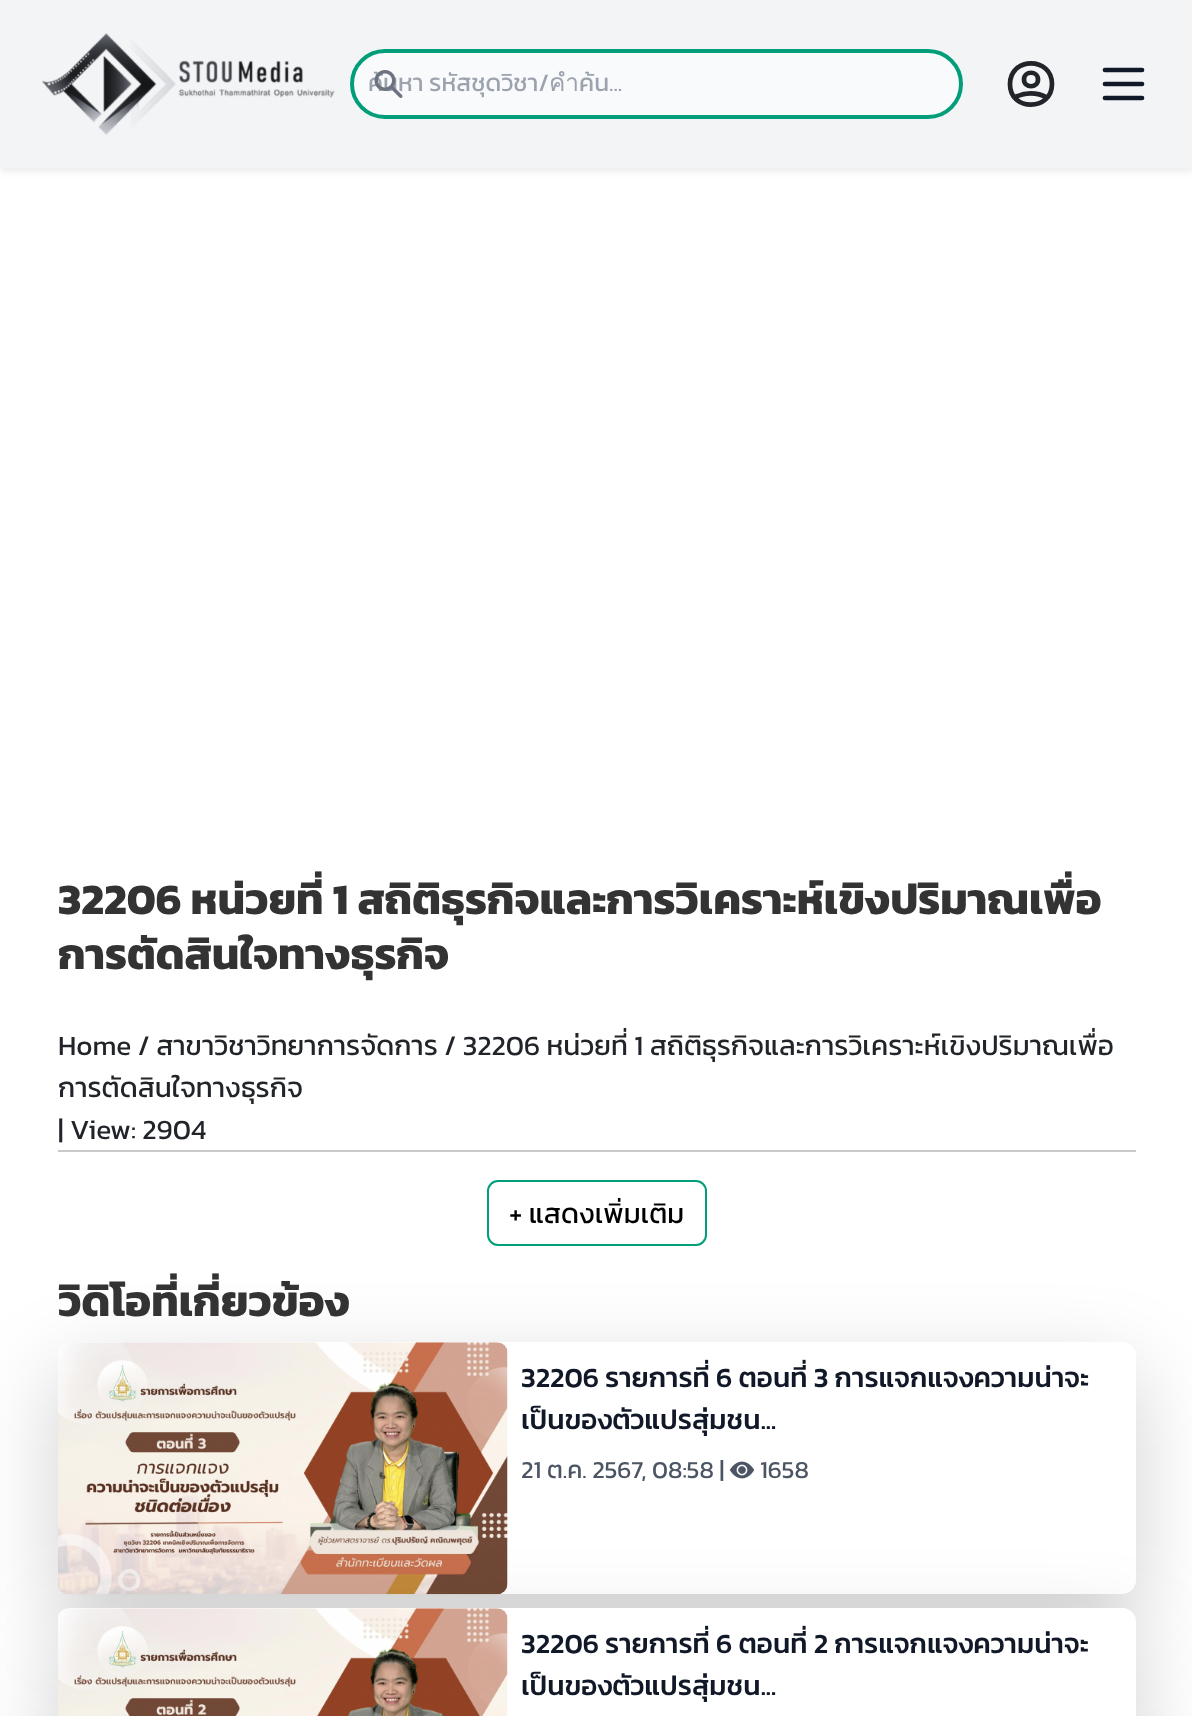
<?xml version="1.0" encoding="UTF-8"?>
<svg xmlns="http://www.w3.org/2000/svg" xmlns:xlink="http://www.w3.org/1999/xlink" width="1192" height="1716">
  <defs>
    <clipPath id="clip1"><rect x="368" y="65" width="553" height="37" /></clipPath>
  </defs>
  <rect width="100%" height="100%" fill="#ffffff" />
  <rect y="4" width="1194" height="168" fill="#000000" fill-opacity="0.07" filter="blur(3.5px)" />
  <rect width="1192" height="168" fill="#f3f4f6" />
  <image x="42" y="33" width="293" height="102" xlink:href="image1.png" />
  <rect x="352" y="51" width="609" height="66" rx="33" fill="#f9fafb" stroke="#019e79" stroke-width="4" />
  <path d="M 1014.5 97.5 c 10 -5.5 22.5 -5.5 32.5 0 m -9 -18 c 0 9 -14 9 -14 0 c 0 -9 14 -9 14 0 z m 14 4.5 c 0 27.5 -42.5 27.5 -42 0 c 0 -27.5 42 -27.5 42 0 z" fill="none" stroke="#212529" stroke-width="4.7" stroke-linecap="round" stroke-linejoin="round" />
  <path d="M 1105 70 h 37 m -37 14 h 37 m -37 14 h 37" fill="none" stroke="#111827" stroke-width="4.7" stroke-linecap="round" stroke-linejoin="round" />
  <rect x="58" y="1150" width="1078" height="2" fill="#c8c9ca" />
  <rect x="488" y="1181" width="218" height="64" rx="10" fill="none" stroke="#019e79" stroke-width="2" />
  <rect x="58" y="1370" width="1078" height="252" rx="14" fill="#000000" fill-opacity="0.18" filter="blur(42px)" />
  <rect x="58" y="1342" width="1078" height="252" rx="14" fill="#ffffff" />
  <image x="58" y="1342" width="450" height="253" xlink:href="image3.png" />
  <image x="729" y="1461" width="26" height="18" xlink:href="image4.png" />
  <rect x="58" y="1636" width="1078" height="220" rx="14" fill="#000000" fill-opacity="0.18" filter="blur(42px)" />
  <rect x="58" y="1608" width="1078" height="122" rx="14" fill="#ffffff" />
  <image x="58" y="1608" width="450" height="108" xlink:href="image5.png" />
  <g clip-path="url(#clip1)">
    <text x="368" y="91" style="font-family: Kanit; font-size: 24.5px; fill: #9ca3af">ค้นหา รหัสชุดวิชา/คำค้น...</text>
  </g>
  <image x="374" y="70" width="29" height="28" xlink:href="image2.png" />
  <text x="58" y="914" style="font-family: Kanit; font-size: 43.6px; font-weight: bold; fill: #333333">32206 หน่วยที่ 1 สถิติธุรกิจและการวิเคราะห์เขิงปริมาณเพื่อ</text>
  <text x="58" y="969" style="font-family: Kanit; font-size: 43.6px; font-weight: bold; fill: #333333">การตัดสินใจทางธุรกิจ</text>
  <text x="58" y="1055" style="font-family: Kanit; font-size: 28px; fill: #212529">Home / สาขาวิชาวิทยาการจัดการ / 32206 หน่วยที่ 1 สถิติธุรกิจและการวิเคราะห์เขิงปริมาณเพื่อ</text>
  <text x="58" y="1097" style="font-family: Kanit; font-size: 28px; fill: #212529">การตัดสินใจทางธุรกิจ</text>
  <text x="58" y="1139" style="font-family: Kanit; font-size: 28px; fill: #212529">| View: 2904</text>
  <text x="509" y="1223" style="font-family: Kanit; font-size: 28px; fill: #000000">+ แสดงเพิ่มเติม</text>
  <text x="58" y="1316" style="font-family: Kanit; font-size: 43.6px; font-weight: bold; fill: #333333">วิดิโอที่เกี่ยวข้อง</text>
  <text x="521" y="1387" style="font-family: Kanit; font-size: 28px; font-weight: 500; fill: #111827">32206 รายการที่ 6 ตอนที่ 3 การแจกแจงความน่าจะ</text>
  <text x="521" y="1429" style="font-family: Kanit; font-size: 28px; font-weight: 500; fill: #111827">เป็นของตัวแปรสุ่มชน...</text>
  <text x="521" y="1478" style="font-family: Kanit; font-size: 24.5px; fill: #4b5563">21 ต.ค. 2567, 08:58 |</text>
  <text x="760" y="1478" style="font-family: Kanit; font-size: 24.5px; fill: #4b5563">1658</text>
  <text x="521" y="1653" style="font-family: Kanit; font-size: 28px; font-weight: 500; fill: #111827">32206 รายการที่ 6 ตอนที่ 2 การแจกแจงความน่าจะ</text>
  <text x="521" y="1695" style="font-family: Kanit; font-size: 28px; font-weight: 500; fill: #111827">เป็นของตัวแปรสุ่มชน...</text>
</svg>
